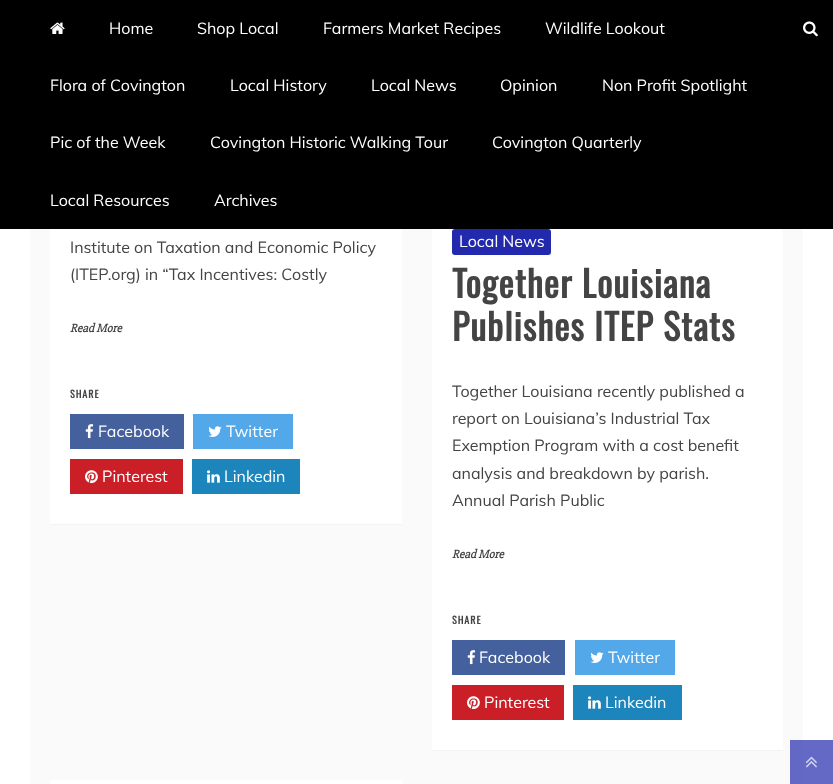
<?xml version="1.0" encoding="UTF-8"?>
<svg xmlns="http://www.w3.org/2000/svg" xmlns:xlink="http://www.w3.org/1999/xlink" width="833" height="784">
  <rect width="100%" height="100%" fill="#ffffff" />
  <rect x="803" y="740" width="30" height="44" fill="#6469c6" />
  <rect width="833" height="229" fill="#000000" />
  <image x="50" y="22" width="15" height="12" xlink:href="image1.png" />
  <image x="803" y="21" width="15" height="16" xlink:href="image2.png" />
  <rect x="30" y="229" width="773" height="555" fill="#fafafa" />
  <rect x="790" y="740" width="13" height="44" fill="#6368c4" />
  <rect x="50" y="524" width="352" height="1" fill="#f3f3f3" />
  <rect x="50" y="229" width="352" height="295" fill="#ffffff" />
  <rect x="70" y="414" width="114" height="35" fill="#45619d" />
  <image x="85" y="424" width="9" height="15" xlink:href="image3.png" />
  <rect x="193" y="414" width="100" height="35" fill="#53a8ea" />
  <image x="208" y="426" width="14" height="11" xlink:href="image4.png" />
  <rect x="70" y="459" width="113" height="35" fill="#ca1f26" />
  <image x="85" y="470" width="13" height="14" xlink:href="image5.png" />
  <rect x="192" y="459" width="108" height="35" fill="#1b85bc" />
  <image x="207" y="470" width="13" height="13" xlink:href="image6.png" />
  <rect x="432" y="750" width="351" height="1" fill="#f3f3f3" />
  <rect x="432" y="229" width="351" height="521" fill="#ffffff" />
  <rect x="452" y="229" width="99" height="26" rx="3" fill="#2229ad" />
  <rect x="452" y="640" width="113" height="35" fill="#45619d" />
  <image x="467" y="650" width="9" height="15" xlink:href="image3.png" />
  <rect x="575" y="640" width="100" height="35" fill="#53a8ea" />
  <image x="590" y="652" width="14" height="11" xlink:href="image4.png" />
  <rect x="452" y="685" width="112" height="35" fill="#ca1f26" />
  <image x="467" y="696" width="13" height="14" xlink:href="image5.png" />
  <rect x="573" y="685" width="109" height="35" fill="#1b85bc" />
  <image x="588" y="696" width="13" height="13" xlink:href="image6.png" />
  <rect x="50" y="780" width="352" height="4" fill="#ffffff" />
  <image x="805" y="756" width="12" height="12" xlink:href="image7.png" />
  <text x="109" y="34" style="font-family: Muli; font-size: 16px; fill: #ffffff">Home</text>
  <text x="197" y="34" style="font-family: Muli; font-size: 16px; fill: #ffffff">Shop Local</text>
  <text x="323" y="34" style="font-family: Muli; font-size: 16px; fill: #ffffff">Farmers Market Recipes</text>
  <text x="545" y="34" style="font-family: Muli; font-size: 16px; fill: #ffffff">Wildlife Lookout</text>
  <text x="50" y="91" style="font-family: Muli; font-size: 16px; fill: #ffffff">Flora of Covington</text>
  <text x="230" y="91" style="font-family: Muli; font-size: 16px; fill: #ffffff">Local History</text>
  <text x="371" y="91" style="font-family: Muli; font-size: 16px; fill: #ffffff">Local News</text>
  <text x="500" y="91" style="font-family: Muli; font-size: 16px; fill: #ffffff">Opinion</text>
  <text x="602" y="91" style="font-family: Muli; font-size: 16px; fill: #ffffff">Non Profit Spotlight</text>
  <text x="50" y="148" style="font-family: Muli; font-size: 16px; fill: #ffffff">Pic of the Week</text>
  <text x="210" y="148" style="font-family: Muli; font-size: 16px; fill: #ffffff">Covington Historic Walking Tour</text>
  <text x="492" y="148" style="font-family: Muli; font-size: 16px; fill: #ffffff">Covington Quarterly</text>
  <text x="50" y="206" style="font-family: Muli; font-size: 16px; fill: #ffffff">Local Resources</text>
  <text x="214" y="206" style="font-family: Muli; font-size: 16px; fill: #ffffff">Archives</text>
  <text x="70" y="253" style="font-family: Muli; font-size: 16px; fill: #444444">Institute on Taxation and Economic Policy</text>
  <text x="70" y="280" style="font-family: Muli; font-size: 16px; fill: #444444">(ITEP.org) in “Tax Incentives: Costly</text>
  <text x="70" y="332" style="font-family: 'Slabo 27px'; font-size: 12px; font-weight: bold; font-style: italic; fill: #444444">Read More</text>
  <text x="70" y="398" style="font-family: Oswald; font-size: 10px; font-weight: bold; letter-spacing: 1px; fill: #444444">SHARE</text>
  <text x="98" y="437" style="font-family: Muli; font-size: 16px; fill: #ffffff">Facebook</text>
  <text x="226" y="437" style="font-family: Muli; font-size: 16px; fill: #ffffff">Twitter</text>
  <text x="102" y="482" style="font-family: Muli; font-size: 16px; fill: #ffffff">Pinterest</text>
  <text x="224" y="482" style="font-family: Muli; font-size: 16px; fill: #ffffff">Linkedin</text>
  <text x="459" y="247" style="font-family: Muli; font-size: 16px; fill: #ffffff">Local News</text>
  <text x="452" y="298" style="font-family: Oswald; font-size: 36px; font-weight: bold; letter-spacing: 1px; fill: #444444">Together Louisiana</text>
  <text x="452" y="341" style="font-family: Oswald; font-size: 36px; font-weight: bold; letter-spacing: 1px; fill: #444444">Publishes ITEP Stats</text>
  <text x="452" y="397" style="font-family: Muli; font-size: 16px; fill: #444444">Together Louisiana recently published a</text>
  <text x="452" y="424" style="font-family: Muli; font-size: 16px; fill: #444444">report on Louisiana’s Industrial Tax</text>
  <text x="452" y="451" style="font-family: Muli; font-size: 16px; fill: #444444">Exemption Program with a cost benefit</text>
  <text x="452" y="479" style="font-family: Muli; font-size: 16px; fill: #444444">analysis and breakdown by parish.</text>
  <text x="452" y="506" style="font-family: Muli; font-size: 16px; fill: #444444">Annual Parish Public</text>
  <text x="452" y="558" style="font-family: 'Slabo 27px'; font-size: 12px; font-weight: bold; font-style: italic; fill: #444444">Read More</text>
  <text x="452" y="624" style="font-family: Oswald; font-size: 10px; font-weight: bold; letter-spacing: 1px; fill: #444444">SHARE</text>
  <text x="479" y="663" style="font-family: Muli; font-size: 16px; fill: #ffffff">Facebook</text>
  <text x="608" y="663" style="font-family: Muli; font-size: 16px; fill: #ffffff">Twitter</text>
  <text x="484" y="708" style="font-family: Muli; font-size: 16px; fill: #ffffff">Pinterest</text>
  <text x="605" y="708" style="font-family: Muli; font-size: 16px; fill: #ffffff">Linkedin</text>
</svg>
